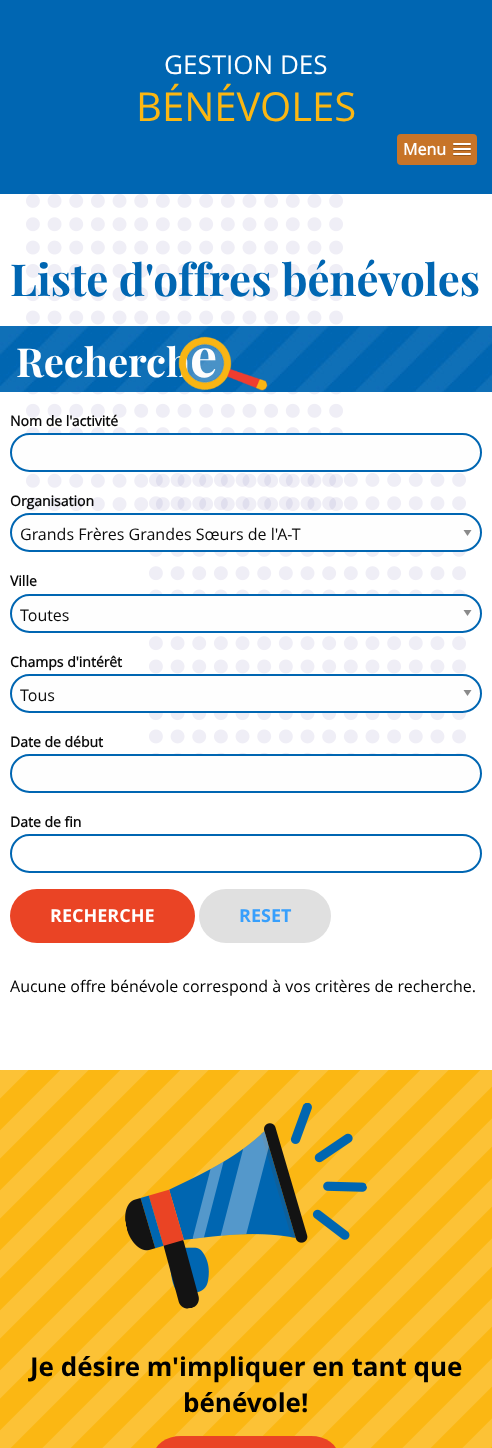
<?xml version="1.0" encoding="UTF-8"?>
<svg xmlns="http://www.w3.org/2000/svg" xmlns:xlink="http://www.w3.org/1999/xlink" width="492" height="1448">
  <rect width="100%" height="100%" fill="#ffffff" />
  <rect width="492" height="194" fill="#0066b2" />
  <rect x="397" y="134" width="80" height="31" rx="4" fill="#c77428" />
  <path d="M 453 144.5 c -1 2 3.5 1.5 3.5 1.5 h 11 c 0 0 4.5 0.5 3.5 -1.5 c -1 1 -7.5 0.5 -9 0.5 c -1.5 0 -8 0.5 -9 -0.5 z" fill="#95571e" />
  <rect x="453" y="143" width="18" height="2" rx="1" fill="#ffffff" />
  <path d="M 453 149.5 c -1 2 3.5 1.5 3.5 1.5 h 11 c 0 0 4.5 0.5 3.5 -1.5 c -1 1 -7.5 0.5 -9 0.5 c -1.5 0 -8 0.5 -9 -0.5 z" fill="#95571e" />
  <rect x="453" y="148" width="18" height="2" rx="1" fill="#ffffff" />
  <path d="M 453 154.5 c -1 2 3.5 1.5 3.5 1.5 h 11 c 0 0 4.5 0.5 3.5 -1.5 c -1 1 -7.5 0.5 -9 0.5 c -1.5 0 -8 0.5 -9 -0.5 z" fill="#95571e" />
  <rect x="453" y="153" width="18" height="2" rx="1" fill="#ffffff" />
  <image x="26" y="194" width="440" height="561" xlink:href="image1.png" />
  <image x="0" y="326" width="492" height="66" xlink:href="image2.png" />
  <rect x="11" y="434" width="470" height="37" rx="18.5" fill="#fefefe" stroke="#0066b2" stroke-width="2" />
  <rect x="10" y="513" width="472" height="39" rx="19.5" fill="#fefefe" />
  <path d="M 463.5 530 h 8 l -4 6 z" fill="#8a8a8a" />
  <rect x="11" y="514" width="470" height="37" rx="18.5" fill="none" stroke="#0066b2" stroke-width="2" />
  <rect x="10" y="594" width="472" height="39" rx="19.5" fill="#fefefe" />
  <path d="M 463.5 610 h 8 l -4 6 z" fill="#8a8a8a" />
  <rect x="11" y="595" width="470" height="37" rx="18.5" fill="none" stroke="#0066b2" stroke-width="2" />
  <rect x="10" y="674" width="472" height="39" rx="19.5" fill="#fefefe" />
  <path d="M 463.5 690 h 8 l -4 6 z" fill="#8a8a8a" />
  <rect x="11" y="675" width="470" height="37" rx="18.5" fill="none" stroke="#0066b2" stroke-width="2" />
  <rect x="11" y="755" width="470" height="37" rx="18.5" fill="#fefefe" stroke="#0066b2" stroke-width="2" />
  <rect x="11" y="835" width="470" height="37" rx="18.5" fill="none" stroke="#0066b2" stroke-width="2" />
  <rect x="10" y="889" width="185" height="54" rx="27" fill="#ea4425" />
  <rect x="199" y="889" width="132" height="54" rx="27" fill="#e0e0e0" />
  <image x="0" y="1070" width="492" height="378" xlink:href="image4.png" />
  <image x="125" y="1102" width="242" height="207" xlink:href="image5.png" />
  <rect x="154" y="1436" width="184" height="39" rx="27" fill="#ea4425" />
  <text x="164" y="74" style="font-family: Open Sans; font-size: 26px; fill: #ffffff">GESTION DES</text>
  <text x="136" y="121" style="font-family: Open Sans; font-size: 40px; fill: #fbb713">BÉNÉVOLES</text>
  <text x="403" y="155" style="font-family: Open Sans; font-size: 16px; font-weight: bold; fill: #ffffff">Menu</text>
  <text x="10" y="296" style="font-family: Playfair Display; font-size: 44px; font-weight: bold; fill: #0066b2">Liste d'offres bénévoles</text>
  <text x="16" y="377" style="font-family: Playfair Display; font-size: 40px; font-weight: bold; fill: #ffffff">Recherch</text>
  <text x="190" y="377" style="font-family: Playfair Display; font-size: 54px; font-weight: bold; fill: #ffffff">e</text>
  <image x="178" y="336" width="90" height="55" xlink:href="image3.png" />
  <text x="10" y="426" style="font-family: Open Sans; font-size: 14px; font-weight: bold; fill: #0a0a0a">Nom de l'activité</text>
  <text x="10" y="506" style="font-family: Open Sans; font-size: 14px; font-weight: bold; fill: #0a0a0a">Organisation</text>
  <text x="20" y="540" style="font-family: Open Sans; font-size: 16px; fill: #0a0a0a">Grands Frères Grandes Sœurs de l'A-T</text>
  <text x="10" y="586" style="font-family: Open Sans; font-size: 14px; font-weight: bold; fill: #0a0a0a">Ville</text>
  <text x="20" y="621" style="font-family: Open Sans; font-size: 16px; fill: #0a0a0a">Toutes</text>
  <text x="10" y="667" style="font-family: Open Sans; font-size: 14px; font-weight: bold; fill: #0a0a0a">Champs d'intérêt</text>
  <text x="20" y="701" style="font-family: Open Sans; font-size: 16px; fill: #0a0a0a">Tous</text>
  <text x="10" y="747" style="font-family: Open Sans; font-size: 14px; font-weight: bold; fill: #0a0a0a">Date de début</text>
  <text x="10" y="827" style="font-family: Open Sans; font-size: 14px; font-weight: bold; fill: #0a0a0a">Date de fin</text>
  <text x="50" y="922" style="font-family: 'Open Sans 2'; font-size: 18px; font-weight: bold; fill: #ffffff">RECHERCHE</text>
  <text x="239" y="922" style="font-family: 'Open Sans 2'; font-size: 18px; font-weight: bold; fill: #379ffc">RESET</text>
  <text x="10" y="992" style="font-family: Open Sans; font-size: 16px; fill: #000000">Aucune offre bénévole correspond à vos critères de recherche.</text>
  <text x="30" y="1376" style="font-family: 'Open Sans 2'; font-size: 26px; font-weight: bold; fill: #000000">Je désire m'impliquer en tant que</text>
  <text x="183" y="1412" style="font-family: 'Open Sans 2'; font-size: 26px; font-weight: bold; fill: #000000">bénévole!</text>
</svg>
